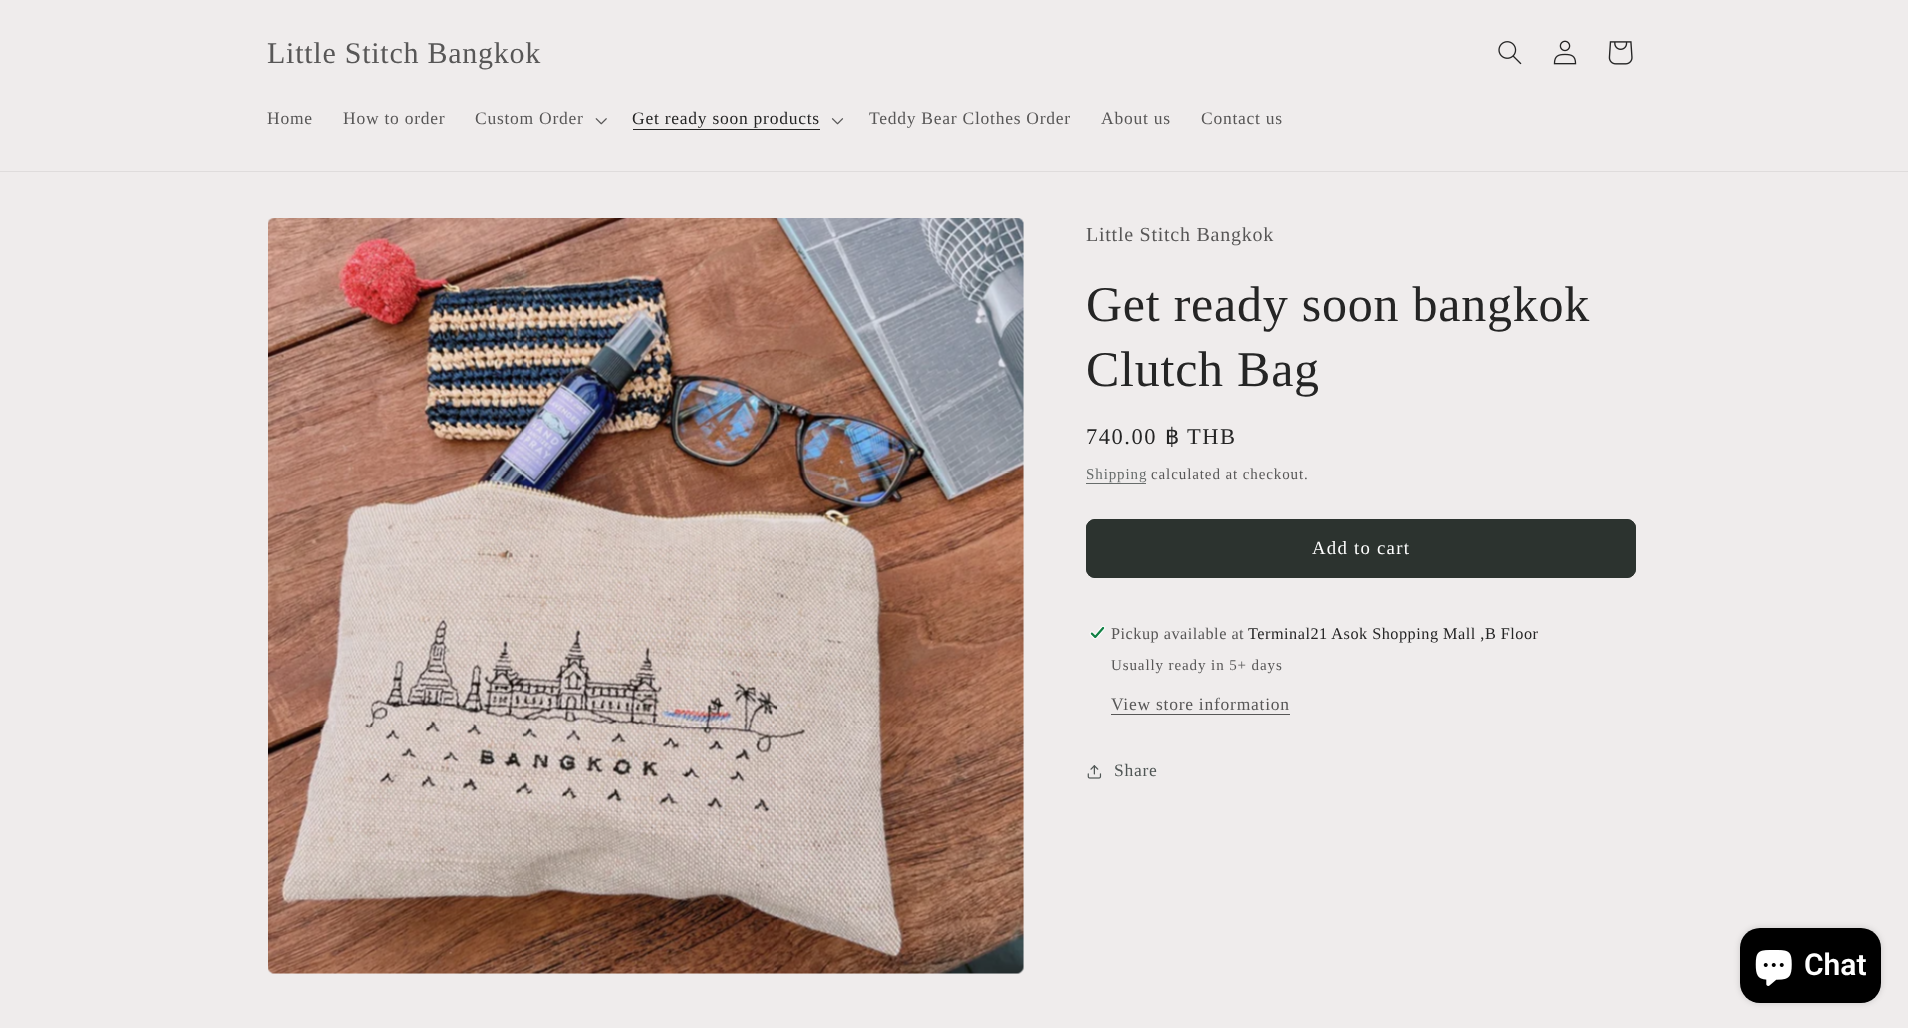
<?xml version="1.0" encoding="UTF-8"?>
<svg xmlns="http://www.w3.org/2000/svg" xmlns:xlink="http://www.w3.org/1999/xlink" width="1908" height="1028">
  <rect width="100%" height="100%" fill="#efecec" />
  <rect y="171" width="1908" height="1" fill="#dfdcdc" />
  <image x="1498" y="41" width="24" height="24" xlink:href="image1.png" />
  <image x="1553" y="40" width="24" height="25" xlink:href="image2.png" />
  <image x="1608" y="41" width="25" height="24" xlink:href="image3.png" />
  <image x="595" y="118" width="12" height="7" xlink:href="image4.png" />
  <rect x="633" y="129" width="187" height="1" fill="#252525" />
  <image x="831" y="118" width="13" height="7" xlink:href="image5.png" />
  <image x="268" y="218" width="756" height="756" xlink:href="image6.png" />
  <rect x="1086" y="483" width="60" height="1" fill="#686d6c" />
  <rect x="1086" y="519" width="550" height="59" rx="9" fill="#2c332f" />
  <rect x="1086.5" y="519.5" width="549" height="58" rx="8.5" fill="none" stroke="#2c332f" />
  <image x="1089" y="626" width="17" height="13" xlink:href="image7.png" />
  <rect x="1111" y="714" width="179" height="1" fill="#585757" />
  <image x="1087" y="765" width="15" height="14" xlink:href="image8.png" />
  <rect x="1740" y="928" width="141" height="75" rx="20" fill="#000000" fill-opacity="0.15" filter="blur(3px)" />
  <rect x="1740" y="928" width="141" height="75" rx="20" fill="#000000" />
  <image x="1755" y="950" width="37" height="36" xlink:href="image9.png" />
  <text x="267" y="63" style="font-family: Liberation Serif; font-size: 30px; letter-spacing: 0.75px; fill: #585757">Little Stitch Bangkok</text>
  <text x="267" y="124" style="font-family: Liberation Serif; font-size: 17.5px; letter-spacing: 0.75px; fill: #585757">Home</text>
  <text x="343" y="124" style="font-family: Liberation Serif; font-size: 17.5px; letter-spacing: 0.75px; fill: #585757">How to order</text>
  <text x="475" y="124" style="font-family: Liberation Serif; font-size: 17.5px; letter-spacing: 0.75px; fill: #585757">Custom Order</text>
  <text x="632" y="124" style="font-family: Liberation Serif; font-size: 17.5px; letter-spacing: 0.75px; fill: #252525">Get ready soon products</text>
  <text x="869" y="124" style="font-family: Liberation Serif; font-size: 17.5px; letter-spacing: 0.75px; fill: #585757">Teddy Bear Clothes Order</text>
  <text x="1101" y="124" style="font-family: Liberation Serif; font-size: 17.5px; letter-spacing: 0.75px; fill: #585757">About us</text>
  <text x="1201" y="124" style="font-family: Liberation Serif; font-size: 17.5px; letter-spacing: 0.75px; fill: #585757">Contact us</text>
  <text x="1086" y="241" style="font-family: Liberation Serif; font-size: 20px; letter-spacing: 0.75px; fill: #585757">Little Stitch Bangkok</text>
  <text x="1086" y="321" style="font-family: Liberation Serif; font-size: 50px; letter-spacing: 0.75px; fill: #252525">Get ready soon bangkok</text>
  <text x="1086" y="386" style="font-family: Liberation Serif; font-size: 50px; letter-spacing: 0.75px; fill: #252525">Clutch Bag</text>
  <text x="1086" y="444" style="font-family: Liberation Serif; font-size: 22.5px; letter-spacing: 1.5px; fill: #252525">740.00</text>
  <text x="1165" y="444" style="font-family: DejaVu Sans; font-size: 22.5px; letter-spacing: 1.5px; fill: #252525">฿</text>
  <text x="1187" y="444" style="font-family: Liberation Serif; font-size: 22.5px; letter-spacing: 1.5px; fill: #252525">THB</text>
  <text x="1086" y="479" style="font-family: Liberation Serif; font-size: 15px; letter-spacing: 0.9px; fill: #686d6c">Shipping</text>
  <text x="1151" y="479" style="font-family: Liberation Serif; font-size: 15px; letter-spacing: 0.9px; fill: #585757">calculated at checkout.</text>
  <text x="1312" y="554" style="font-family: Liberation Serif; font-size: 18.75px; letter-spacing: 1.25px; fill: #ffffff">Add to cart</text>
  <text x="1111" y="639" style="font-family: Liberation Serif; font-size: 16.25px; letter-spacing: 0.5px; fill: #585757">Pickup available at</text>
  <text x="1248" y="639" style="font-family: Liberation Serif; font-size: 16.25px; letter-spacing: 0.5px; fill: #252525">Terminal21 Asok Shopping Mall ,B Floor</text>
  <text x="1111" y="670" style="font-family: Liberation Serif; font-size: 15px; letter-spacing: 0.9px; fill: #585757">Usually ready in 5+ days</text>
  <text x="1111" y="710" style="font-family: Liberation Serif; font-size: 17.5px; letter-spacing: 0.75px; fill: #585757">View store information</text>
  <text x="1114" y="776" style="font-family: Liberation Serif; font-size: 17.5px; letter-spacing: 0.75px; fill: #505655">Share</text>
  <text x="1804" y="975" style="font-family: Roboto; font-size: 30px; font-weight: 600; fill: #ffffff">Chat</text>
</svg>
